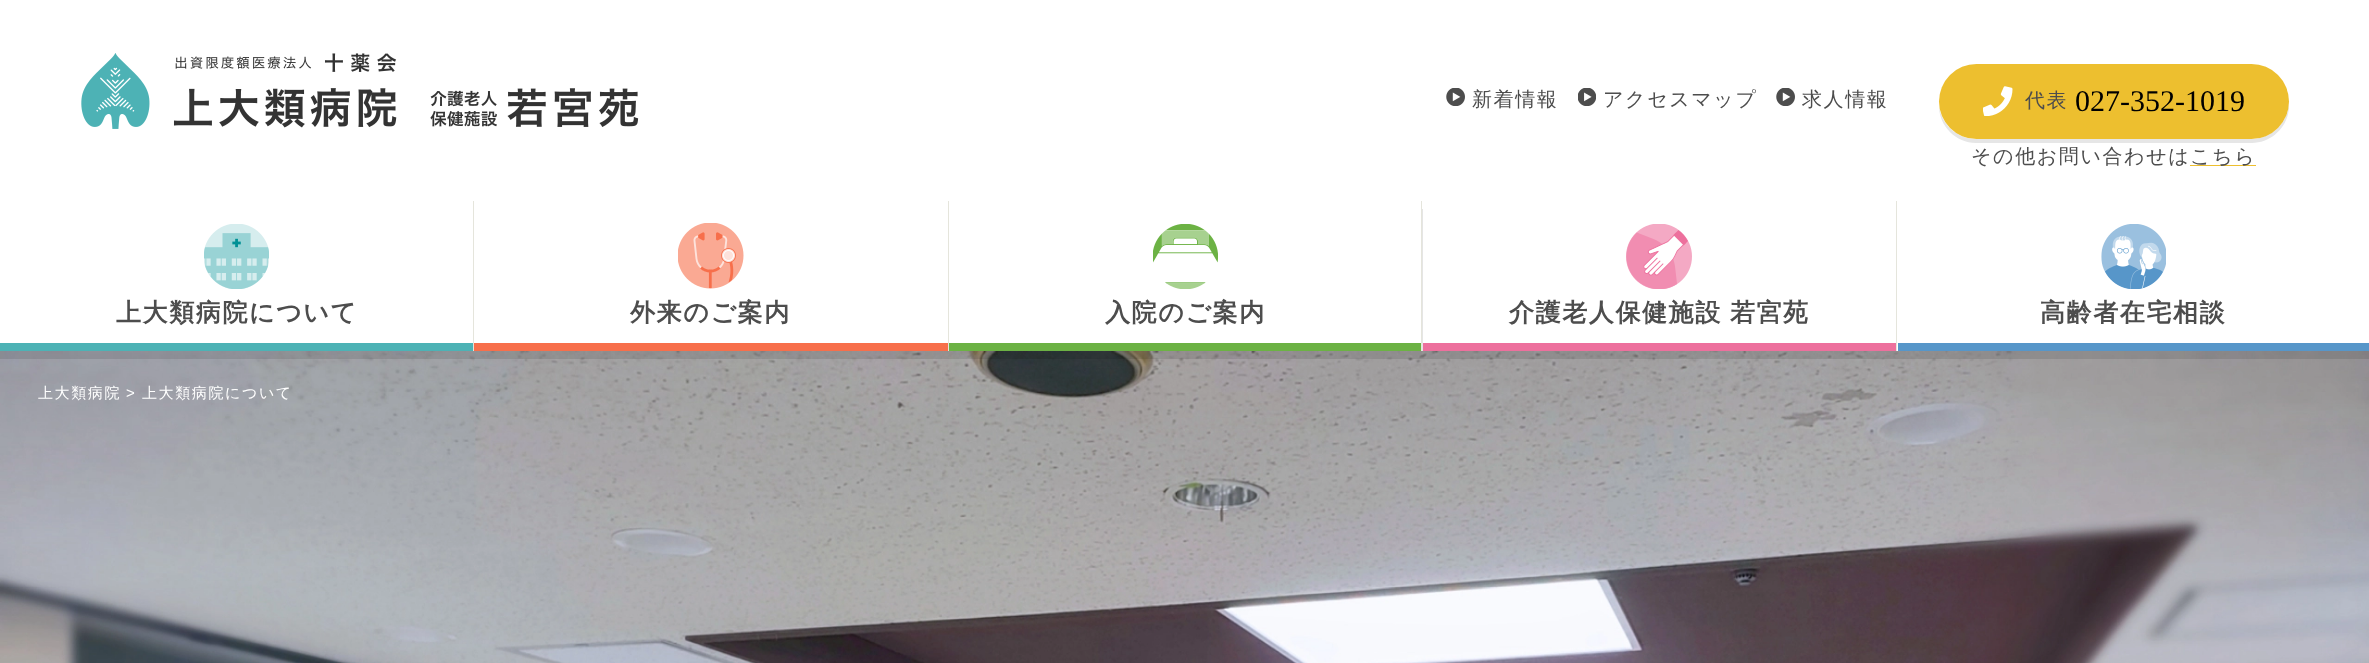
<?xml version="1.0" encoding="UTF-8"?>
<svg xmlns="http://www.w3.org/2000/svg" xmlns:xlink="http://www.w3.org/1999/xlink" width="2369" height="663">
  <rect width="100%" height="100%" fill="#ffffff" />
  <image x="81" y="53" width="558" height="76" xlink:href="image1.png" />
  <image x="1446" y="88" width="19" height="18" xlink:href="image2.png" />
  <image x="1578" y="88" width="18" height="18" xlink:href="image3.png" />
  <image x="1776" y="88" width="19" height="18" xlink:href="image2.png" />
  <path d="M 1939 106 c 0 20 17 37 37 37 h 276 c 20 0 37 -17 37 -37 v -5 c 0 21 -17 38 -38 38 h -275 c -19 0 -35 -15 -37 -33 z" fill="#e6e6e6" />
  <rect x="1939" y="64" width="350" height="75" rx="37.5" fill="#edbf2f" />
  <image x="1983" y="86" width="30" height="30" xlink:href="image4.png" />
  <rect x="2190" y="165" width="66" height="1" fill="#edbf2f" />
  <image x="0" y="351" width="2369" height="312" xlink:href="image10.png" />
  <path d="M 0 351 v 8 h 474 v -150 v 142 z" fill="#000000" fill-opacity="0.1" />
  <rect x="473" y="201" width="1" height="150" fill="#e5e5dc" />
  <image x="204" y="224" width="65" height="65" xlink:href="image5.png" />
  <rect y="343" width="473" height="8" fill="#4db2b5" />
  <path d="M 474 351 v 8 h 475 v -150 v 142 z" fill="#000000" fill-opacity="0.1" />
  <rect x="948" y="201" width="1" height="150" fill="#e5e5dc" />
  <image x="678" y="223" width="66" height="66" xlink:href="image6.png" />
  <rect x="474" y="343" width="474" height="8" fill="#f76f4b" />
  <path d="M 949 351 v 8 h 474 v -150 h -1 v 142 z" fill="#000000" fill-opacity="0.1" />
  <rect x="1421" y="201" width="1" height="150" fill="#e5e5dc" />
  <image x="1153" y="224" width="65" height="65" xlink:href="image7.png" />
  <rect x="949" y="343" width="472" height="8" fill="#6cb244" />
  <path d="M 1423 351 v 8 h 475 v -150 v 142 z" fill="#000000" fill-opacity="0.1" />
  <rect x="1896" y="201" width="1" height="150" fill="#e5e5dc" />
  <image x="1626" y="224" width="66" height="65" xlink:href="image8.png" />
  <rect x="1423" y="343" width="473" height="8" fill="#ed709d" />
  <rect x="1898" y="351" width="471" height="8" fill="#000000" fill-opacity="0.1" />
  <image x="2101" y="224" width="65" height="65" xlink:href="image9.png" />
  <rect x="1898" y="343" width="471" height="8" fill="#5796c9" />
  <text x="1472" y="106" style="font-family: WenQuanYi Zen Hei; font-size: 20px; font-weight: 500; letter-spacing: 1.6px; fill: #4d4d4d">新着情報</text>
  <text x="1603" y="106" style="font-family: WenQuanYi Zen Hei; font-size: 20px; font-weight: 500; letter-spacing: 1.6px; fill: #4d4d4d">アクセスマップ</text>
  <text x="1802" y="106" style="font-family: WenQuanYi Zen Hei; font-size: 20px; font-weight: 500; letter-spacing: 1.6px; fill: #4d4d4d">求人情報</text>
  <text x="2025" y="107" style="font-family: WenQuanYi Zen Hei; font-size: 20px; font-weight: 500; letter-spacing: 1.6px; fill: #4d4d4d">代表</text>
  <text x="2075" y="111" style="font-family: Liberation Serif; font-size: 30px; fill: #000000">027-352-1019</text>
  <text x="1971" y="163" style="font-family: WenQuanYi Zen Hei; font-size: 20px; font-weight: 500; letter-spacing: 1.6px; fill: #4d4d4d">その他お問い合わせは</text>
  <text x="2190" y="163" style="font-family: WenQuanYi Zen Hei; font-size: 20px; font-weight: 500; letter-spacing: 1.6px; fill: #4d4d4d">こちら</text>
  <text x="116" y="321" style="font-family: WenQuanYi Zen Hei; font-size: 25px; font-weight: bold; letter-spacing: 1.6px; fill: #4d4d4d">上大類病院について</text>
  <text x="630" y="321" style="font-family: WenQuanYi Zen Hei; font-size: 25px; font-weight: bold; letter-spacing: 1.6px; fill: #4d4d4d">外来のご案内</text>
  <text x="1105" y="321" style="font-family: WenQuanYi Zen Hei; font-size: 25px; font-weight: bold; letter-spacing: 1.6px; fill: #4d4d4d">入院のご案内</text>
  <text x="1509" y="321" word-spacing="-1" style="font-family: WenQuanYi Zen Hei; font-size: 25px; font-weight: bold; letter-spacing: 1.6px; fill: #4d4d4d">介護老人保健施設 若宮苑</text>
  <text x="2040" y="321" style="font-family: WenQuanYi Zen Hei; font-size: 25px; font-weight: bold; letter-spacing: 1.6px; fill: #4d4d4d">高齢者在宅相談</text>
  <text x="38" y="398" style="font-family: WenQuanYi Zen Hei; font-size: 15px; font-weight: 500; letter-spacing: 1.6px; fill: #ffffff">上大類病院</text>
  <text x="126" y="398" style="font-family: Liberation Sans; font-size: 15px; letter-spacing: 1.6px; fill: #ffffff">&gt;</text>
  <text x="142" y="398" style="font-family: WenQuanYi Zen Hei; font-size: 15px; font-weight: 500; letter-spacing: 1.6px; fill: #ffffff">上大類病院について</text>
</svg>
